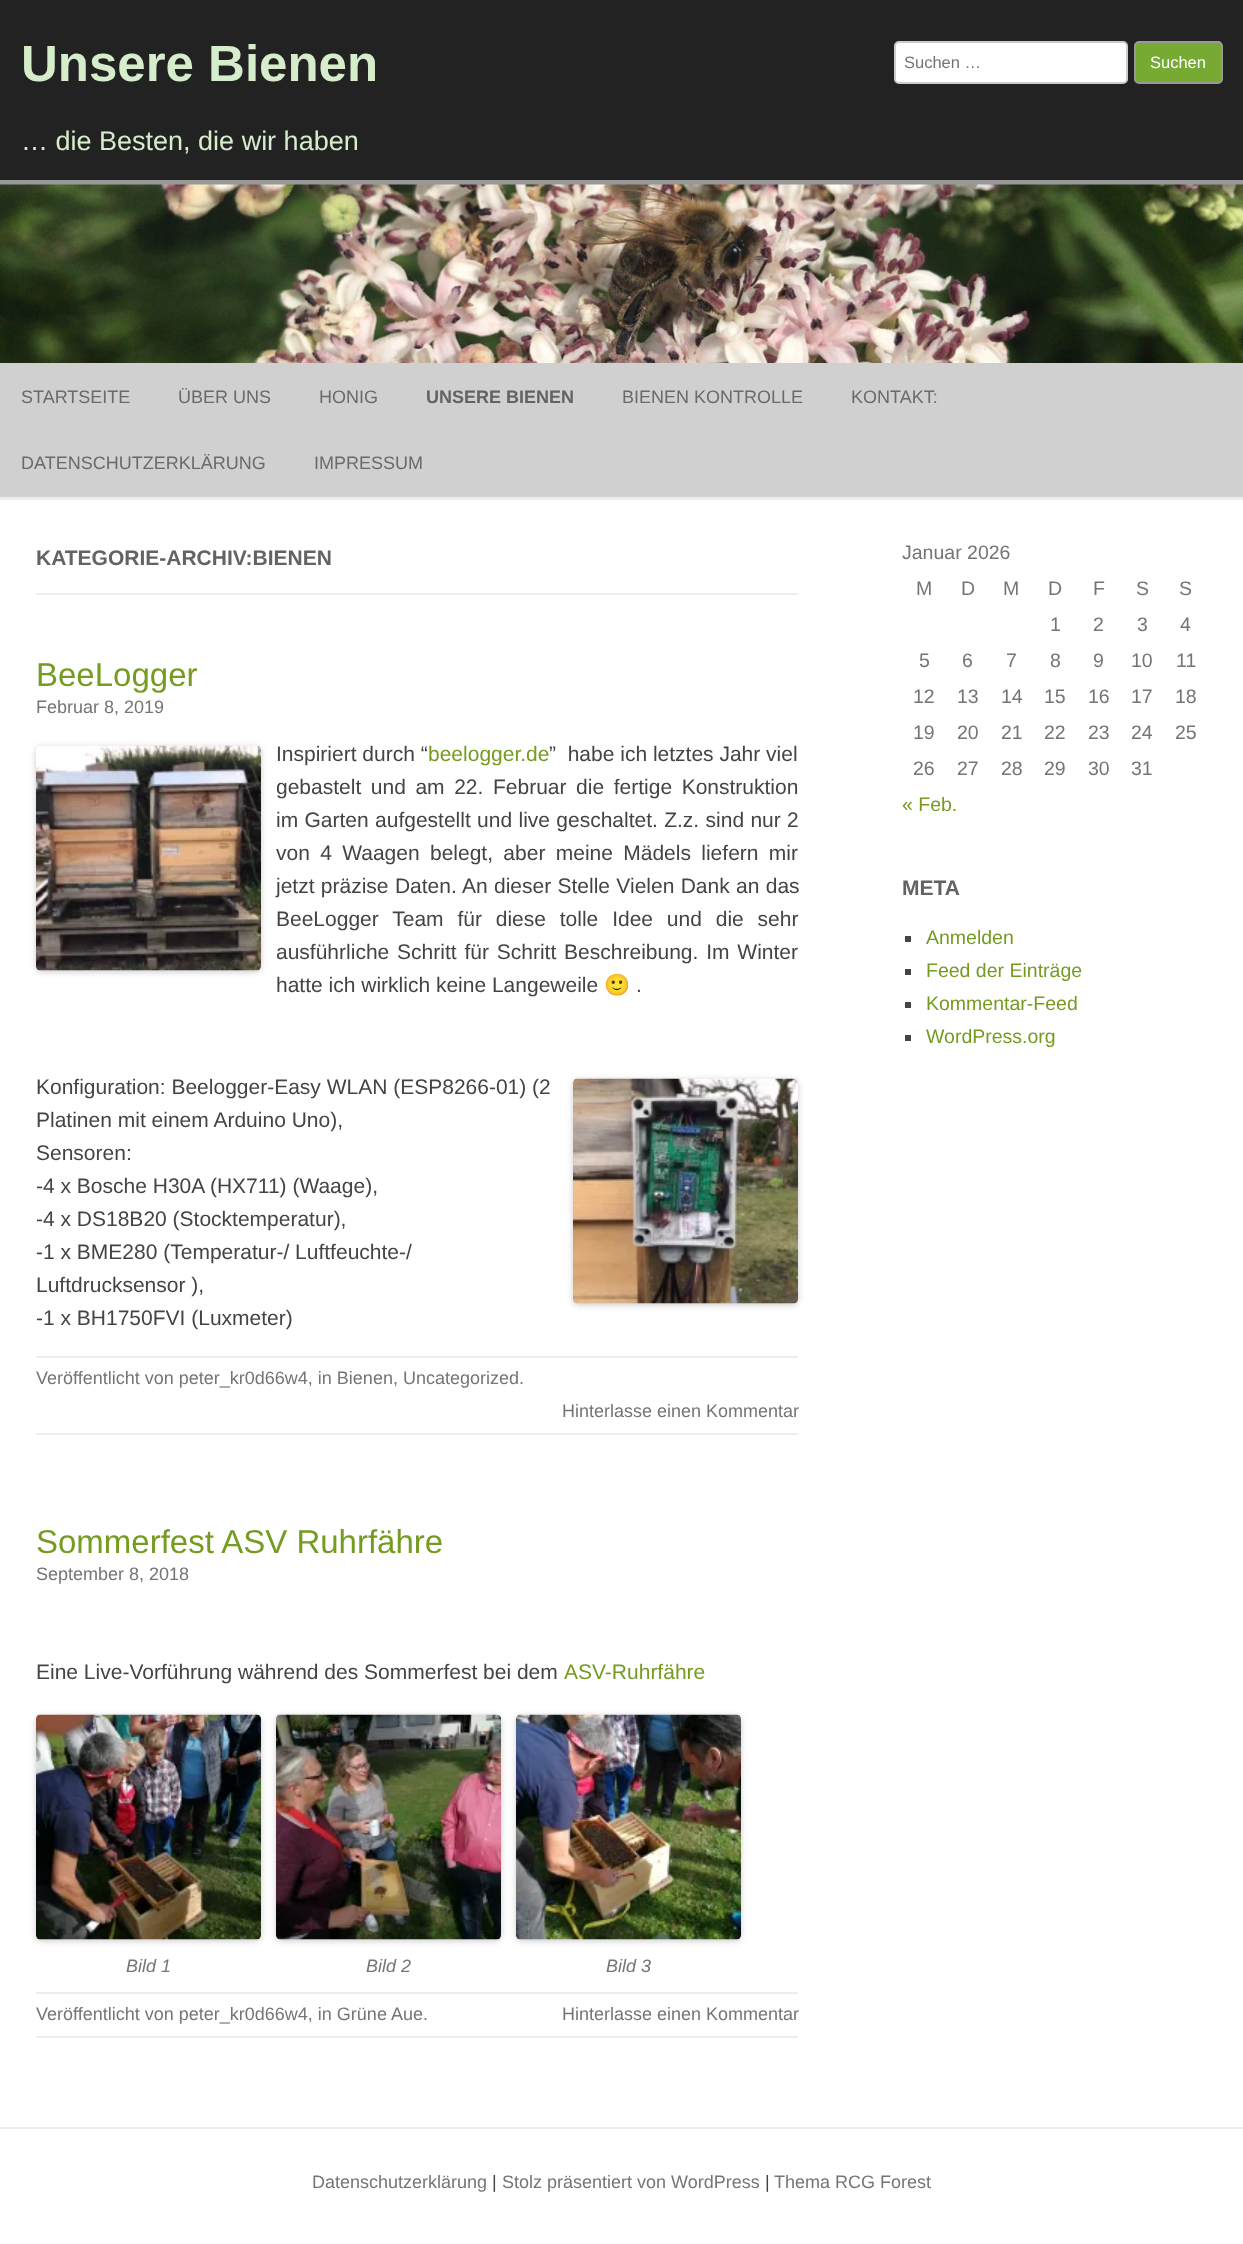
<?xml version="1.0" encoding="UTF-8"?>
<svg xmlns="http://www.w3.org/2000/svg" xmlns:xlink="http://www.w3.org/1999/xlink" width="1243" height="2244">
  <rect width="100%" height="100%" fill="#ffffff" />
  <rect width="1243" height="180" fill="#222222" />
  <rect y="180" width="1243" height="5" fill="#999999" />
  <rect x="895" y="42" width="232" height="41" rx="4" fill="#ffffff" stroke="#cccccc" stroke-width="2" />
  <rect x="1135" y="42" width="87" height="41" rx="4" fill="#77aa33" stroke="#999999" stroke-width="2" />
  <image x="0" y="184" width="1243" height="179" xlink:href="image1.png" />
  <rect y="363" width="1243" height="134" fill="#d0d0d0" />
  <rect y="497" width="1243" height="3" fill="#ededed" />
  <rect x="36" y="593" width="762" height="2" fill="#ededed" />
  <rect x="36" y="747" width="225" height="225" rx="5" fill="#000000" fill-opacity="0.2" filter="blur(3px)" />
  <image x="36" y="745" width="225" height="226" xlink:href="image2.png" />
  <rect x="573" y="1080" width="225" height="225" rx="5" fill="#000000" fill-opacity="0.2" filter="blur(3px)" />
  <image x="573" y="1078" width="225" height="226" xlink:href="image3.png" />
  <rect x="36" y="1356" width="762" height="2" fill="#ededed" />
  <rect x="36" y="1433" width="762" height="2" fill="#ededed" />
  <rect x="36" y="1716" width="225" height="225" rx="5" fill="#000000" fill-opacity="0.2" filter="blur(3px)" />
  <image x="36" y="1714" width="225" height="226" xlink:href="image4.png" />
  <rect x="276" y="1716" width="225" height="225" rx="5" fill="#000000" fill-opacity="0.2" filter="blur(3px)" />
  <image x="276" y="1714" width="225" height="226" xlink:href="image5.png" />
  <rect x="516" y="1716" width="225" height="225" rx="5" fill="#000000" fill-opacity="0.2" filter="blur(3px)" />
  <image x="516" y="1714" width="225" height="226" xlink:href="image6.png" />
  <rect x="36" y="1992" width="762" height="2" fill="#ededed" />
  <rect x="36" y="2036" width="762" height="2" fill="#ededed" />
  <rect x="905" y="936" width="6" height="6" fill="#444444" />
  <rect x="905" y="969" width="6" height="6" fill="#444444" />
  <rect x="905" y="1002" width="6" height="6" fill="#444444" />
  <rect x="905" y="1035" width="6" height="6" fill="#444444" />
  <rect y="2127" width="1243" height="2" fill="#ededed" />
  <text x="21" y="81" style="font-family: Liberation Sans; font-size: 51px; font-weight: bold; fill: #d5edcb">Unsere Bienen</text>
  <text x="21" y="150" style="font-family: Liberation Sans; font-size: 27px; fill: #d5edcb">… die Besten, die wir haben</text>
  <text x="904" y="68" style="font-family: Liberation Sans; font-size: 16.5px; fill: #757575">Suchen …</text>
  <text x="1150" y="68" style="font-family: Liberation Sans; font-size: 16.5px; fill: #ffffff">Suchen</text>
  <text x="21" y="403" style="font-family: Liberation Sans; font-size: 18px; fill: #6a6a6a">STARTSEITE</text>
  <text x="178" y="403" style="font-family: Liberation Sans; font-size: 18px; fill: #6a6a6a">ÜBER UNS</text>
  <text x="319" y="403" style="font-family: Liberation Sans; font-size: 18px; fill: #6a6a6a">HONIG</text>
  <text x="426" y="403" style="font-family: Liberation Sans; font-size: 18px; font-weight: bold; fill: #636363">UNSERE BIENEN</text>
  <text x="622" y="403" style="font-family: Liberation Sans; font-size: 18px; fill: #6a6a6a">BIENEN KONTROLLE</text>
  <text x="851" y="403" style="font-family: Liberation Sans; font-size: 18px; fill: #6a6a6a">KONTAKT:</text>
  <text x="21" y="469" style="font-family: Liberation Sans; font-size: 18px; fill: #6a6a6a">DATENSCHUTZERKLÄRUNG</text>
  <text x="314" y="469" style="font-family: Liberation Sans; font-size: 18px; fill: #6a6a6a">IMPRESSUM</text>
  <text x="36" y="565" style="font-family: Liberation Sans; font-size: 21px; font-weight: bold; fill: #636363">KATEGORIE-ARCHIV:BIENEN</text>
  <text x="36" y="686" style="font-family: Liberation Sans; font-size: 33px; fill: #759b21">BeeLogger</text>
  <text x="36" y="713" style="font-family: Liberation Sans; font-size: 18px; fill: #757575">Februar 8, 2019</text>
  <text x="276" y="761" style="font-family: Liberation Sans; font-size: 21px; fill: #444444">Inspiriert durch “</text>
  <text x="428" y="761" style="font-family: Liberation Sans; font-size: 21px; fill: #759b21">beelogger.de</text>
  <text x="549" y="761" style="font-family: Liberation Sans; font-size: 21px; fill: #444444" xml:space="preserve">”  habe ich letztes Jahr viel</text>
  <text x="276" y="794" word-spacing="3.75" style="font-family: Liberation Sans; font-size: 21px; fill: #444444">gebastelt und am 22. Februar die fertige Konstruktion</text>
  <text x="276" y="827" word-spacing="0.5" style="font-family: Liberation Sans; font-size: 21px; fill: #444444">im Garten aufgestellt und live geschaltet. Z.z. sind nur 2</text>
  <text x="276" y="860" word-spacing="4.5" style="font-family: Liberation Sans; font-size: 21px; fill: #444444">von 4 Waagen belegt, aber meine Mädels liefern mir</text>
  <text x="276" y="893" word-spacing="0.5" style="font-family: Liberation Sans; font-size: 21px; fill: #444444">jetzt präzise Daten. An dieser Stelle Vielen Dank an das</text>
  <text x="276" y="926" word-spacing="8" style="font-family: Liberation Sans; font-size: 21px; fill: #444444">BeeLogger Team für diese tolle Idee und die sehr</text>
  <text x="276" y="959" word-spacing="2" style="font-family: Liberation Sans; font-size: 21px; fill: #444444">ausführliche Schritt für Schritt Beschreibung. Im Winter</text>
  <text x="276" y="992" style="font-family: Liberation Sans; font-size: 21px; fill: #444444">hatte ich wirklich keine Langeweile</text>
  <text x="604" y="992" style="font-family: Noto Color Emoji; font-size: 21px; fill: #444444">🙂</text>
  <text x="636" y="992" style="font-family: Liberation Sans; font-size: 21px; fill: #444444">.</text>
  <text x="36" y="1094" style="font-family: Liberation Sans; font-size: 21px; fill: #444444">Konfiguration: Beelogger-Easy WLAN (ESP8266-01) (2</text>
  <text x="36" y="1127" style="font-family: Liberation Sans; font-size: 21px; fill: #444444">Platinen mit einem Arduino Uno),</text>
  <text x="36" y="1160" style="font-family: Liberation Sans; font-size: 21px; fill: #444444">Sensoren:</text>
  <text x="36" y="1193" style="font-family: Liberation Sans; font-size: 21px; fill: #444444">-4 x Bosche H30A (HX711) (Waage),</text>
  <text x="36" y="1226" style="font-family: Liberation Sans; font-size: 21px; fill: #444444">-4 x DS18B20 (Stocktemperatur),</text>
  <text x="36" y="1259" style="font-family: Liberation Sans; font-size: 21px; fill: #444444">-1 x BME280 (Temperatur-/ Luftfeuchte-/</text>
  <text x="36" y="1292" style="font-family: Liberation Sans; font-size: 21px; fill: #444444">Luftdrucksensor ),</text>
  <text x="36" y="1325" style="font-family: Liberation Sans; font-size: 21px; fill: #444444">-1 x BH1750FVI (Luxmeter)</text>
  <text x="36" y="1384" style="font-family: Liberation Sans; font-size: 18px; fill: #757575">Veröffentlicht von peter_kr0d66w4, in Bienen, Uncategorized.</text>
  <text x="562" y="1417" style="font-family: Liberation Sans; font-size: 18px; fill: #757575">Hinterlasse einen Kommentar</text>
  <text x="36" y="1553" style="font-family: Liberation Sans; font-size: 33px; fill: #759b21">Sommerfest ASV Ruhrfähre</text>
  <text x="36" y="1580" style="font-family: Liberation Sans; font-size: 18px; fill: #757575">September 8, 2018</text>
  <text x="36" y="1679" style="font-family: Liberation Sans; font-size: 21px; fill: #444444">Eine Live-Vorführung während des Sommerfest bei dem</text>
  <text x="564" y="1679" style="font-family: Liberation Sans; font-size: 21px; fill: #759b21">ASV-Ruhrfähre</text>
  <text x="126" y="1972" style="font-family: Liberation Sans; font-size: 18px; font-style: italic; fill: #757575">Bild 1</text>
  <text x="366" y="1972" style="font-family: Liberation Sans; font-size: 18px; font-style: italic; fill: #757575">Bild 2</text>
  <text x="606" y="1972" style="font-family: Liberation Sans; font-size: 18px; font-style: italic; fill: #757575">Bild 3</text>
  <text x="36" y="2020" style="font-family: Liberation Sans; font-size: 18px; fill: #757575">Veröffentlicht von peter_kr0d66w4, in Grüne Aue.</text>
  <text x="562" y="2020" style="font-family: Liberation Sans; font-size: 18px; fill: #757575">Hinterlasse einen Kommentar</text>
  <text x="902" y="559" style="font-family: Liberation Sans; font-size: 19.5px; fill: #757575">Januar 2026</text>
  <text x="916" y="595" style="font-family: Liberation Sans; font-size: 19.5px; fill: #757575">M</text>
  <text x="961" y="595" style="font-family: Liberation Sans; font-size: 19.5px; fill: #757575">D</text>
  <text x="1003" y="595" style="font-family: Liberation Sans; font-size: 19.5px; fill: #757575">M</text>
  <text x="1048" y="595" style="font-family: Liberation Sans; font-size: 19.5px; fill: #757575">D</text>
  <text x="1093" y="595" style="font-family: Liberation Sans; font-size: 19.5px; fill: #757575">F</text>
  <text x="1136" y="595" style="font-family: Liberation Sans; font-size: 19.5px; fill: #757575">S</text>
  <text x="1179" y="595" style="font-family: Liberation Sans; font-size: 19.5px; fill: #757575">S</text>
  <text x="1050" y="631" style="font-family: Liberation Sans; font-size: 19.5px; fill: #757575">1</text>
  <text x="1093" y="631" style="font-family: Liberation Sans; font-size: 19.5px; fill: #757575">2</text>
  <text x="1137" y="631" style="font-family: Liberation Sans; font-size: 19.5px; fill: #757575">3</text>
  <text x="1180" y="631" style="font-family: Liberation Sans; font-size: 19.5px; fill: #757575">4</text>
  <text x="919" y="667" style="font-family: Liberation Sans; font-size: 19.5px; fill: #757575">5</text>
  <text x="962" y="667" style="font-family: Liberation Sans; font-size: 19.5px; fill: #757575">6</text>
  <text x="1006" y="667" style="font-family: Liberation Sans; font-size: 19.5px; fill: #757575">7</text>
  <text x="1050" y="667" style="font-family: Liberation Sans; font-size: 19.5px; fill: #757575">8</text>
  <text x="1093" y="667" style="font-family: Liberation Sans; font-size: 19.5px; fill: #757575">9</text>
  <text x="1131" y="667" style="font-family: Liberation Sans; font-size: 19.5px; fill: #757575">10</text>
  <text x="1176" y="667" style="font-family: Liberation Sans; font-size: 19.5px; fill: #757575">11</text>
  <text x="913" y="703" style="font-family: Liberation Sans; font-size: 19.5px; fill: #757575">12</text>
  <text x="957" y="703" style="font-family: Liberation Sans; font-size: 19.5px; fill: #757575">13</text>
  <text x="1001" y="703" style="font-family: Liberation Sans; font-size: 19.5px; fill: #757575">14</text>
  <text x="1044" y="703" style="font-family: Liberation Sans; font-size: 19.5px; fill: #757575">15</text>
  <text x="1088" y="703" style="font-family: Liberation Sans; font-size: 19.5px; fill: #757575">16</text>
  <text x="1131" y="703" style="font-family: Liberation Sans; font-size: 19.5px; fill: #757575">17</text>
  <text x="1175" y="703" style="font-family: Liberation Sans; font-size: 19.5px; fill: #757575">18</text>
  <text x="913" y="739" style="font-family: Liberation Sans; font-size: 19.5px; fill: #757575">19</text>
  <text x="957" y="739" style="font-family: Liberation Sans; font-size: 19.5px; fill: #757575">20</text>
  <text x="1001" y="739" style="font-family: Liberation Sans; font-size: 19.5px; fill: #757575">21</text>
  <text x="1044" y="739" style="font-family: Liberation Sans; font-size: 19.5px; fill: #757575">22</text>
  <text x="1088" y="739" style="font-family: Liberation Sans; font-size: 19.5px; fill: #757575">23</text>
  <text x="1131" y="739" style="font-family: Liberation Sans; font-size: 19.5px; fill: #757575">24</text>
  <text x="1175" y="739" style="font-family: Liberation Sans; font-size: 19.5px; fill: #757575">25</text>
  <text x="913" y="775" style="font-family: Liberation Sans; font-size: 19.5px; fill: #757575">26</text>
  <text x="957" y="775" style="font-family: Liberation Sans; font-size: 19.5px; fill: #757575">27</text>
  <text x="1001" y="775" style="font-family: Liberation Sans; font-size: 19.5px; fill: #757575">28</text>
  <text x="1044" y="775" style="font-family: Liberation Sans; font-size: 19.5px; fill: #757575">29</text>
  <text x="1088" y="775" style="font-family: Liberation Sans; font-size: 19.5px; fill: #757575">30</text>
  <text x="1131" y="775" style="font-family: Liberation Sans; font-size: 19.5px; fill: #757575">31</text>
  <text x="902" y="811" style="font-family: Liberation Sans; font-size: 19.5px; fill: #759b21">« Feb.</text>
  <text x="902" y="895" style="font-family: Liberation Sans; font-size: 21px; font-weight: bold; fill: #636363">META</text>
  <text x="926" y="944" style="font-family: Liberation Sans; font-size: 19.5px; fill: #759b21">Anmelden</text>
  <text x="926" y="977" style="font-family: Liberation Sans; font-size: 19.5px; fill: #759b21">Feed der Einträge</text>
  <text x="926" y="1010" style="font-family: Liberation Sans; font-size: 19.5px; fill: #759b21">Kommentar-Feed</text>
  <text x="926" y="1043" style="font-family: Liberation Sans; font-size: 19.5px; fill: #759b21">WordPress.org</text>
  <text x="312" y="2188" style="font-family: Liberation Sans; font-size: 18px; fill: #757575">Datenschutzerklärung</text>
  <text x="492" y="2188" style="font-family: Liberation Sans; font-size: 18px; fill: #444444">|</text>
  <text x="502" y="2188" style="font-family: Liberation Sans; font-size: 18px; fill: #757575">Stolz präsentiert von WordPress</text>
  <text x="765" y="2188" style="font-family: Liberation Sans; font-size: 18px; fill: #444444">|</text>
  <text x="774" y="2188" style="font-family: Liberation Sans; font-size: 18px; fill: #757575">Thema RCG Forest</text>
</svg>
